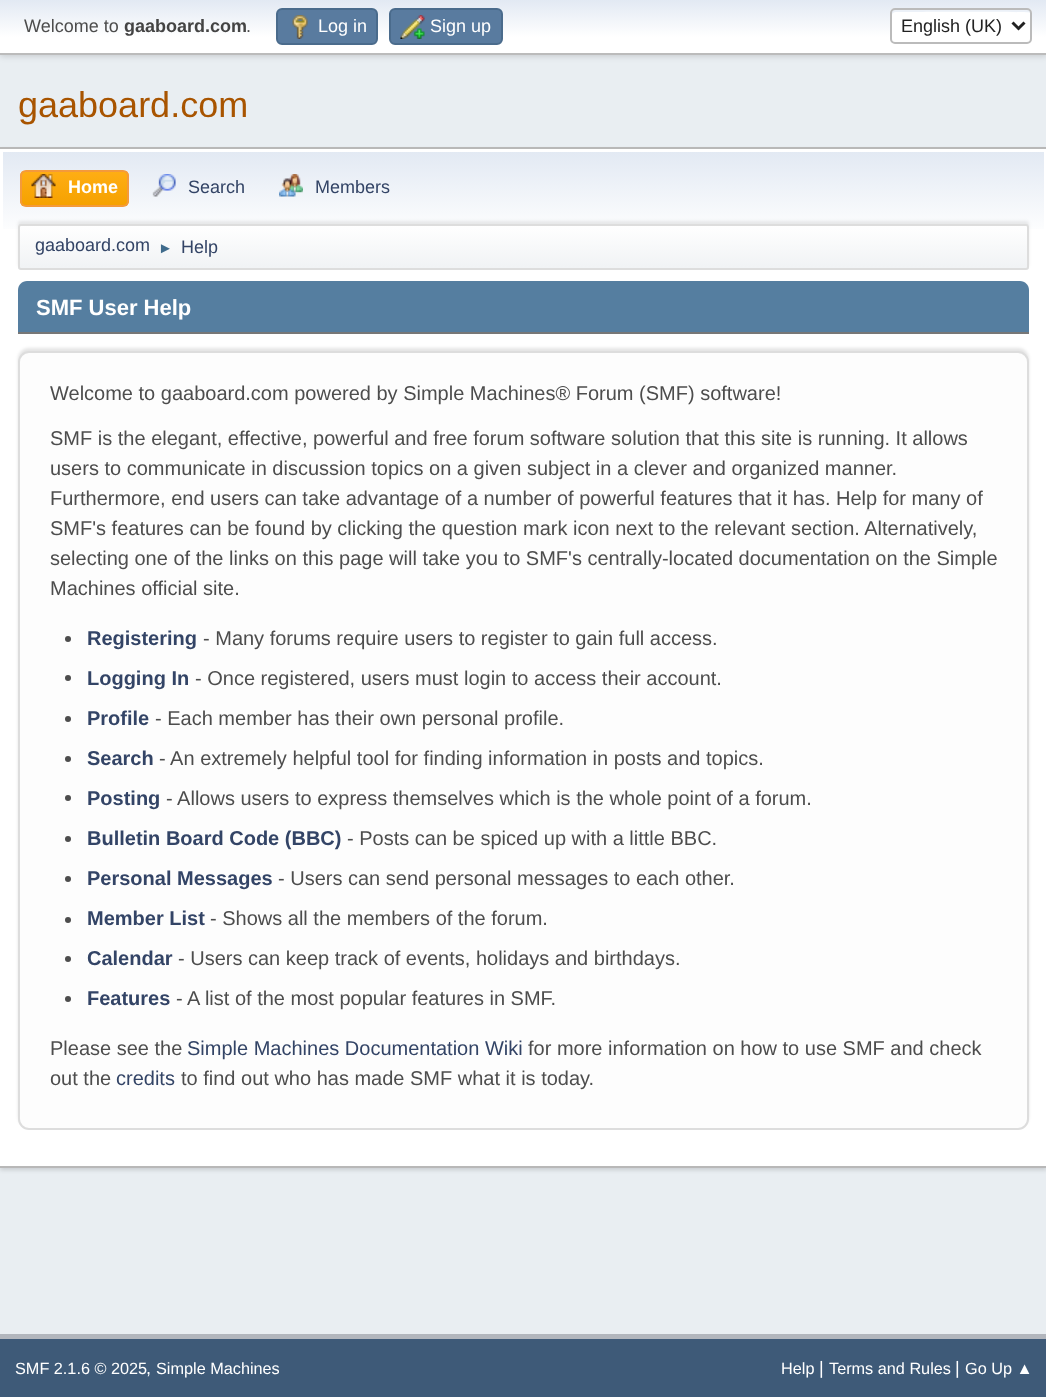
<?xml version="1.0" encoding="UTF-8"?>
<svg xmlns="http://www.w3.org/2000/svg" xmlns:xlink="http://www.w3.org/1999/xlink" width="1046" height="1397">
  <defs>
    <linearGradient id="g1" gradientUnits="userSpaceOnUse" x1="524" y1="0" x2="524" y2="53"><stop offset="0" stop-color="#e2e9f3" /><stop offset="0.7" stop-color="#ffffff" /></linearGradient>
    <linearGradient id="g2" gradientUnits="userSpaceOnUse" x1="524" y1="151" x2="524" y2="273"><stop offset="0" stop-color="#e2e9f3" /><stop offset="0.7" stop-color="#ffffff" /></linearGradient>
    <clipPath id="clip1"><rect x="20" y="170" width="109" height="37" rx="6" /></clipPath>
    <linearGradient id="g3" gradientUnits="userSpaceOnUse" x1="74" y1="171" x2="74" y2="206"><stop offset="0" stop-color="#ffae14" /><stop offset="1" stop-color="#f5a100" /></linearGradient>
    <clipPath id="clip2"><rect x="18" y="224" width="1011" height="46" rx="3" /></clipPath>
    <linearGradient id="g4" gradientUnits="userSpaceOnUse" x1="524" y1="225" x2="524" y2="269"><stop offset="0" stop-color="#ffffff" /><stop offset="0.95" stop-color="#f1f3f5" /></linearGradient>
  </defs>
  <rect width="100%" height="100%" fill="#e9eef2" />
  <rect y="2" width="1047" height="54" fill="#000000" fill-opacity="0.16" filter="blur(3px)" />
  <rect width="1046" height="53" fill="url(#g1)" />
  <rect y="53" width="1046" height="2" fill="#bbbbbb" />
  <rect x="277" y="9" width="100" height="35" rx="5" fill="#597b9f" stroke="#4a6b8c" stroke-width="2" />
  <image x="292" y="15" width="16" height="24" xlink:href="image1.png" />
  <rect x="390" y="9" width="112" height="35" rx="5" fill="#597b9f" stroke="#4a6b8c" stroke-width="2" />
  <image x="400" y="15" width="25" height="24" xlink:href="image2.png" />
  <rect x="890" y="8" width="142" height="36" rx="5" fill="#ffffff" />
  <path d="M 896 12 c 13 0 133 -1 135 1 v -1 c 0 -2 -1 -3 -3 -3 h -134 c -2 0 -3 1 -3 3 v 27 c 0 1 0 2 1 2 v -26 c 0 -2 2 -3 4 -3 z" fill="#ecf1f8" />
  <rect x="891" y="9" width="140" height="34" rx="4" fill="none" stroke="#bbbbbb" stroke-width="2" />
  <path d="M 1012.5 22.5 l 6 6 l 6 -6" fill="none" stroke="#222222" stroke-width="3" />
  <rect y="150" width="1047" height="1020" fill="#000000" fill-opacity="0.14" filter="blur(2px)" />
  <rect y="149" width="1046" height="1017" fill="#ffffff" />
  <rect y="147" width="1046" height="2" fill="#b8b8b8" />
  <rect y="1166" width="1046" height="2" fill="#b8b8b8" />
  <rect x="3" y="152" width="1041" height="77" fill="url(#g2)" />
  <g clip-path="url(#clip1)">
    <rect x="20" y="171" width="109" height="35" fill="url(#g3)" />
  </g>
  <rect x="21" y="171" width="107" height="35" rx="5" fill="none" stroke="#f49a3a" stroke-width="2" />
  <image x="31" y="174" width="25" height="24" xlink:href="image3.png" />
  <image x="152" y="174" width="24" height="23" xlink:href="image4.png" />
  <image x="279" y="174" width="24" height="23" xlink:href="image5.png" />
  <rect x="18" y="221" width="1011" height="46" rx="3" fill="#000000" fill-opacity="0.08" filter="blur(1.5px)" />
  <g clip-path="url(#clip2)">
    <rect x="18" y="225" width="1011" height="44" fill="url(#g4)" />
  </g>
  <rect x="19" y="225" width="1009" height="44" rx="2" fill="none" stroke="#dddddd" stroke-width="2" />
  <path d="M 27 281 h 993 c 5 0 9 4 9 9 v 43 h -1011 v -43 c 0 -5 4 -9 9 -9 z" fill="#557ea0" />
  <rect x="18" y="332" width="1011" height="2" fill="#777777" />
  <rect x="18" y="348" width="1011" height="779" rx="11" fill="#000000" fill-opacity="0.1" filter="blur(1.5px)" />
  <rect x="19" y="352" width="1009" height="777" rx="10" fill="#fdfdfd" stroke="#dddddd" stroke-width="2" />
  <circle cx="68" cy="639" r="3" fill="#4d4d4d" />
  <circle cx="68" cy="678" r="3" fill="#4d4d4d" />
  <circle cx="68" cy="719" r="3" fill="#4d4d4d" />
  <circle cx="68" cy="759" r="3" fill="#4d4d4d" />
  <circle cx="68" cy="798" r="3" fill="#4d4d4d" />
  <circle cx="68" cy="839" r="3" fill="#4d4d4d" />
  <circle cx="68" cy="879" r="3" fill="#4d4d4d" />
  <circle cx="68" cy="920" r="3" fill="#4d4d4d" />
  <circle cx="68" cy="959" r="3" fill="#4d4d4d" />
  <circle cx="68" cy="999" r="3" fill="#4d4d4d" />
  <rect y="1339" width="1046" height="58" fill="#3e5a78" />
  <rect y="1334" width="1046" height="5" fill="#b2b6bd" />
  <text x="24" y="32" style="font-family: Liberation Sans; font-size: 18px; fill: #4d4d4d">Welcome to</text>
  <text x="124" y="32" style="font-family: Liberation Sans; font-size: 18px; font-weight: bold; fill: #444444">gaaboard.com</text>
  <text x="246" y="32" style="font-family: Liberation Sans; font-size: 18px; fill: #4d4d4d">.</text>
  <text x="318" y="32" style="font-family: Liberation Sans; font-size: 18px; fill: #ffffff">Log in</text>
  <text x="430" y="32" style="font-family: Liberation Sans; font-size: 18px; fill: #ffffff">Sign up</text>
  <text x="901" y="32" style="font-family: Liberation Sans; font-size: 18px; fill: #222222">English (UK)</text>
  <text x="18" y="117" style="font-family: Liberation Sans; font-size: 36px; fill: #a85400">gaaboard.com</text>
  <text x="68" y="193" style="font-family: Liberation Sans; font-size: 18px; font-weight: bold; fill: #ffffff">Home</text>
  <text x="188" y="193" style="font-family: Liberation Sans; font-size: 18px; fill: #334466">Search</text>
  <text x="315" y="193" style="font-family: Liberation Sans; font-size: 18px; fill: #334466">Members</text>
  <text x="35" y="251" style="font-family: Liberation Sans; font-size: 18px; fill: #334466">gaaboard.com</text>
  <text x="158" y="253" style="font-family: Liberation Sans; font-size: 15px; fill: #3f6b8c">►</text>
  <text x="181" y="253" style="font-family: Liberation Sans; font-size: 18px; fill: #334466">Help</text>
  <text x="36" y="315" style="font-family: Liberation Sans; font-size: 22px; font-weight: bold; fill: #ffffff">SMF User Help</text>
  <text x="50" y="400" style="font-family: Liberation Sans; font-size: 20px; fill: #4d4d4d">Welcome to gaaboard.com powered by Simple Machines® Forum (SMF) software!</text>
  <text x="50" y="445" style="font-family: Liberation Sans; font-size: 20px; fill: #4d4d4d">SMF is the elegant, effective, powerful and free forum software solution that this site is running. It allows</text>
  <text x="50" y="475" style="font-family: Liberation Sans; font-size: 20px; fill: #4d4d4d">users to communicate in discussion topics on a given subject in a clever and organized manner.</text>
  <text x="50" y="505" style="font-family: Liberation Sans; font-size: 20px; fill: #4d4d4d">Furthermore, end users can take advantage of a number of powerful features that it has. Help for many of</text>
  <text x="50" y="535" style="font-family: Liberation Sans; font-size: 20px; fill: #4d4d4d">SMF's features can be found by clicking the question mark icon next to the relevant section. Alternatively,</text>
  <text x="50" y="565" style="font-family: Liberation Sans; font-size: 20px; fill: #4d4d4d">selecting one of the links on this page will take you to SMF's centrally-located documentation on the Simple</text>
  <text x="50" y="595" style="font-family: Liberation Sans; font-size: 20px; fill: #4d4d4d">Machines official site.</text>
  <text x="87" y="645" style="font-family: Liberation Sans; font-size: 20px; font-weight: bold; fill: #334466">Registering</text>
  <text x="203" y="645" style="font-family: Liberation Sans; font-size: 20px; fill: #4d4d4d">- Many forums require users to register to gain full access.</text>
  <text x="87" y="685" style="font-family: Liberation Sans; font-size: 20px; font-weight: bold; fill: #334466">Logging In</text>
  <text x="195" y="685" style="font-family: Liberation Sans; font-size: 20px; fill: #4d4d4d">- Once registered, users must login to access their account.</text>
  <text x="87" y="725" style="font-family: Liberation Sans; font-size: 20px; font-weight: bold; fill: #334466">Profile</text>
  <text x="155" y="725" style="font-family: Liberation Sans; font-size: 20px; fill: #4d4d4d">- Each member has their own personal profile.</text>
  <text x="87" y="765" style="font-family: Liberation Sans; font-size: 20px; font-weight: bold; fill: #334466">Search</text>
  <text x="159" y="765" style="font-family: Liberation Sans; font-size: 20px; fill: #4d4d4d">- An extremely helpful tool for finding information in posts and topics.</text>
  <text x="87" y="805" style="font-family: Liberation Sans; font-size: 20px; font-weight: bold; fill: #334466">Posting</text>
  <text x="166" y="805" style="font-family: Liberation Sans; font-size: 20px; fill: #4d4d4d">- Allows users to express themselves which is the whole point of a forum.</text>
  <text x="87" y="845" style="font-family: Liberation Sans; font-size: 20px; font-weight: bold; fill: #334466">Bulletin Board Code (BBC)</text>
  <text x="347" y="845" style="font-family: Liberation Sans; font-size: 20px; fill: #4d4d4d">- Posts can be spiced up with a little BBC.</text>
  <text x="87" y="885" style="font-family: Liberation Sans; font-size: 20px; font-weight: bold; fill: #334466">Personal Messages</text>
  <text x="278" y="885" style="font-family: Liberation Sans; font-size: 20px; fill: #4d4d4d">- Users can send personal messages to each other.</text>
  <text x="87" y="925" style="font-family: Liberation Sans; font-size: 20px; font-weight: bold; fill: #334466">Member List</text>
  <text x="210" y="925" style="font-family: Liberation Sans; font-size: 20px; fill: #4d4d4d">- Shows all the members of the forum.</text>
  <text x="87" y="965" style="font-family: Liberation Sans; font-size: 20px; font-weight: bold; fill: #334466">Calendar</text>
  <text x="178" y="965" style="font-family: Liberation Sans; font-size: 20px; fill: #4d4d4d">- Users can keep track of events, holidays and birthdays.</text>
  <text x="87" y="1005" style="font-family: Liberation Sans; font-size: 20px; font-weight: bold; fill: #334466">Features</text>
  <text x="176" y="1005" style="font-family: Liberation Sans; font-size: 20px; fill: #4d4d4d">- A list of the most popular features in SMF.</text>
  <text x="50" y="1055" style="font-family: Liberation Sans; font-size: 20px; fill: #4d4d4d">Please see the</text>
  <text x="187" y="1055" style="font-family: Liberation Sans; font-size: 20px; fill: #334466">Simple Machines Documentation Wiki</text>
  <text x="528" y="1055" style="font-family: Liberation Sans; font-size: 20px; fill: #4d4d4d">for more information on how to use SMF and check</text>
  <text x="50" y="1085" style="font-family: Liberation Sans; font-size: 20px; fill: #4d4d4d">out the</text>
  <text x="116" y="1085" style="font-family: Liberation Sans; font-size: 20px; fill: #334466">credits</text>
  <text x="181" y="1085" style="font-family: Liberation Sans; font-size: 20px; fill: #4d4d4d">to find out who has made SMF what it is today.</text>
  <text x="15" y="1374" style="font-family: Liberation Sans; font-size: 16.25px; fill: #ffffff">SMF 2.1.6 © 2025</text>
  <text x="146" y="1374" style="font-family: Liberation Sans; font-size: 18px; fill: #ffffff">,</text>
  <text x="156" y="1374" style="font-family: Liberation Sans; font-size: 16.25px; fill: #ffffff">Simple Machines</text>
  <text x="781" y="1374" style="font-family: Liberation Sans; font-size: 16.25px; fill: #ffffff">Help</text>
  <text x="819" y="1374" style="font-family: Liberation Sans; font-size: 18px; fill: #ffffff">|</text>
  <text x="829" y="1374" style="font-family: Liberation Sans; font-size: 16.25px; fill: #ffffff">Terms and Rules</text>
  <text x="955" y="1374" style="font-family: Liberation Sans; font-size: 18px; fill: #ffffff">|</text>
  <text x="965" y="1374" style="font-family: Liberation Sans; font-size: 16.25px; fill: #ffffff">Go Up ▲</text>
</svg>
